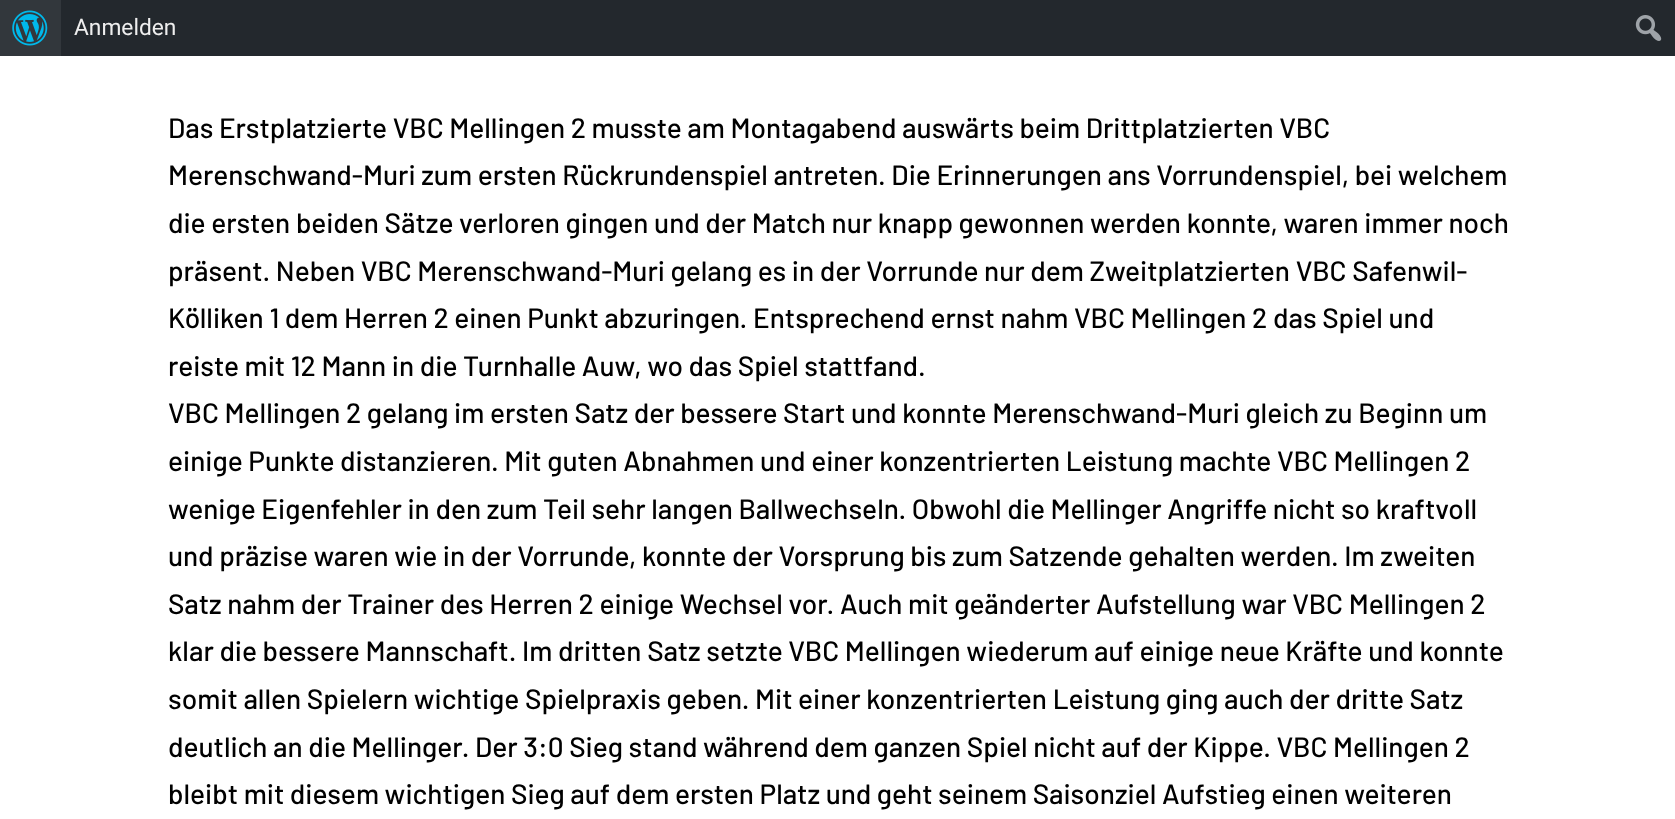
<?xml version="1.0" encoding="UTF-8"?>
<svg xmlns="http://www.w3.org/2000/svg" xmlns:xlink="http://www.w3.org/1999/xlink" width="1675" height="819">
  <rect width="100%" height="100%" fill="#ffffff" />
  <rect x="61" width="1614" height="56" fill="#23282d" />
  <rect width="61" height="56" fill="#32373c" />
  <image x="12" y="10" width="36" height="36" xlink:href="image1.png" />
  <image x="1635" y="15" width="27" height="26" xlink:href="image2.png" />
  <text x="74" y="35" style="font-family: Roboto; font-size: 22.75px; fill: #eeeeee">Anmelden</text>
  <text x="168" y="138" style="font-family: Barlow; font-size: 28px; font-weight: 500; fill: #000000">Das Erstplatzierte VBC Mellingen 2 musste am Montagabend auswärts beim Drittplatzierten VBC</text>
  <text x="168" y="185" style="font-family: Barlow; font-size: 28px; font-weight: 500; fill: #000000">Merenschwand-Muri zum ersten Rückrundenspiel antreten. Die Erinnerungen ans Vorrundenspiel, bei welchem</text>
  <text x="168" y="233" style="font-family: Barlow; font-size: 28px; font-weight: 500; fill: #000000">die ersten beiden Sätze verloren gingen und der Match nur knapp gewonnen werden konnte, waren immer noch</text>
  <text x="168" y="281" style="font-family: Barlow; font-size: 28px; font-weight: 500; fill: #000000">präsent. Neben VBC Merenschwand-Muri gelang es in der Vorrunde nur dem Zweitplatzierten VBC Safenwil-</text>
  <text x="168" y="328" style="font-family: Barlow; font-size: 28px; font-weight: 500; fill: #000000">Kölliken 1 dem Herren 2 einen Punkt abzuringen. Entsprechend ernst nahm VBC Mellingen 2 das Spiel und</text>
  <text x="168" y="376" style="font-family: Barlow; font-size: 28px; font-weight: 500; fill: #000000">reiste mit 12 Mann in die Turnhalle Auw, wo das Spiel stattfand.</text>
  <text x="168" y="423" style="font-family: Barlow; font-size: 28px; font-weight: 500; fill: #000000">VBC Mellingen 2 gelang im ersten Satz der bessere Start und konnte Merenschwand-Muri gleich zu Beginn um</text>
  <text x="168" y="471" style="font-family: Barlow; font-size: 28px; font-weight: 500; fill: #000000">einige Punkte distanzieren. Mit guten Abnahmen und einer konzentrierten Leistung machte VBC Mellingen 2</text>
  <text x="168" y="519" style="font-family: Barlow; font-size: 28px; font-weight: 500; fill: #000000">wenige Eigenfehler in den zum Teil sehr langen Ballwechseln. Obwohl die Mellinger Angriffe nicht so kraftvoll</text>
  <text x="168" y="566" style="font-family: Barlow; font-size: 28px; font-weight: 500; fill: #000000">und präzise waren wie in der Vorrunde, konnte der Vorsprung bis zum Satzende gehalten werden. Im zweiten</text>
  <text x="168" y="614" style="font-family: Barlow; font-size: 28px; font-weight: 500; fill: #000000">Satz nahm der Trainer des Herren 2 einige Wechsel vor. Auch mit geänderter Aufstellung war VBC Mellingen 2</text>
  <text x="168" y="661" style="font-family: Barlow; font-size: 28px; font-weight: 500; fill: #000000">klar die bessere Mannschaft. Im dritten Satz setzte VBC Mellingen wiederum auf einige neue Kräfte und konnte</text>
  <text x="168" y="709" style="font-family: Barlow; font-size: 28px; font-weight: 500; fill: #000000">somit allen Spielern wichtige Spielpraxis geben. Mit einer konzentrierten Leistung ging auch der dritte Satz</text>
  <text x="168" y="757" style="font-family: Barlow; font-size: 28px; font-weight: 500; fill: #000000">deutlich an die Mellinger. Der 3:0 Sieg stand während dem ganzen Spiel nicht auf der Kippe. VBC Mellingen 2</text>
  <text x="168" y="804" style="font-family: Barlow; font-size: 28px; font-weight: 500; fill: #000000">bleibt mit diesem wichtigen Sieg auf dem ersten Platz und geht seinem Saisonziel Aufstieg einen weiteren</text>
</svg>
